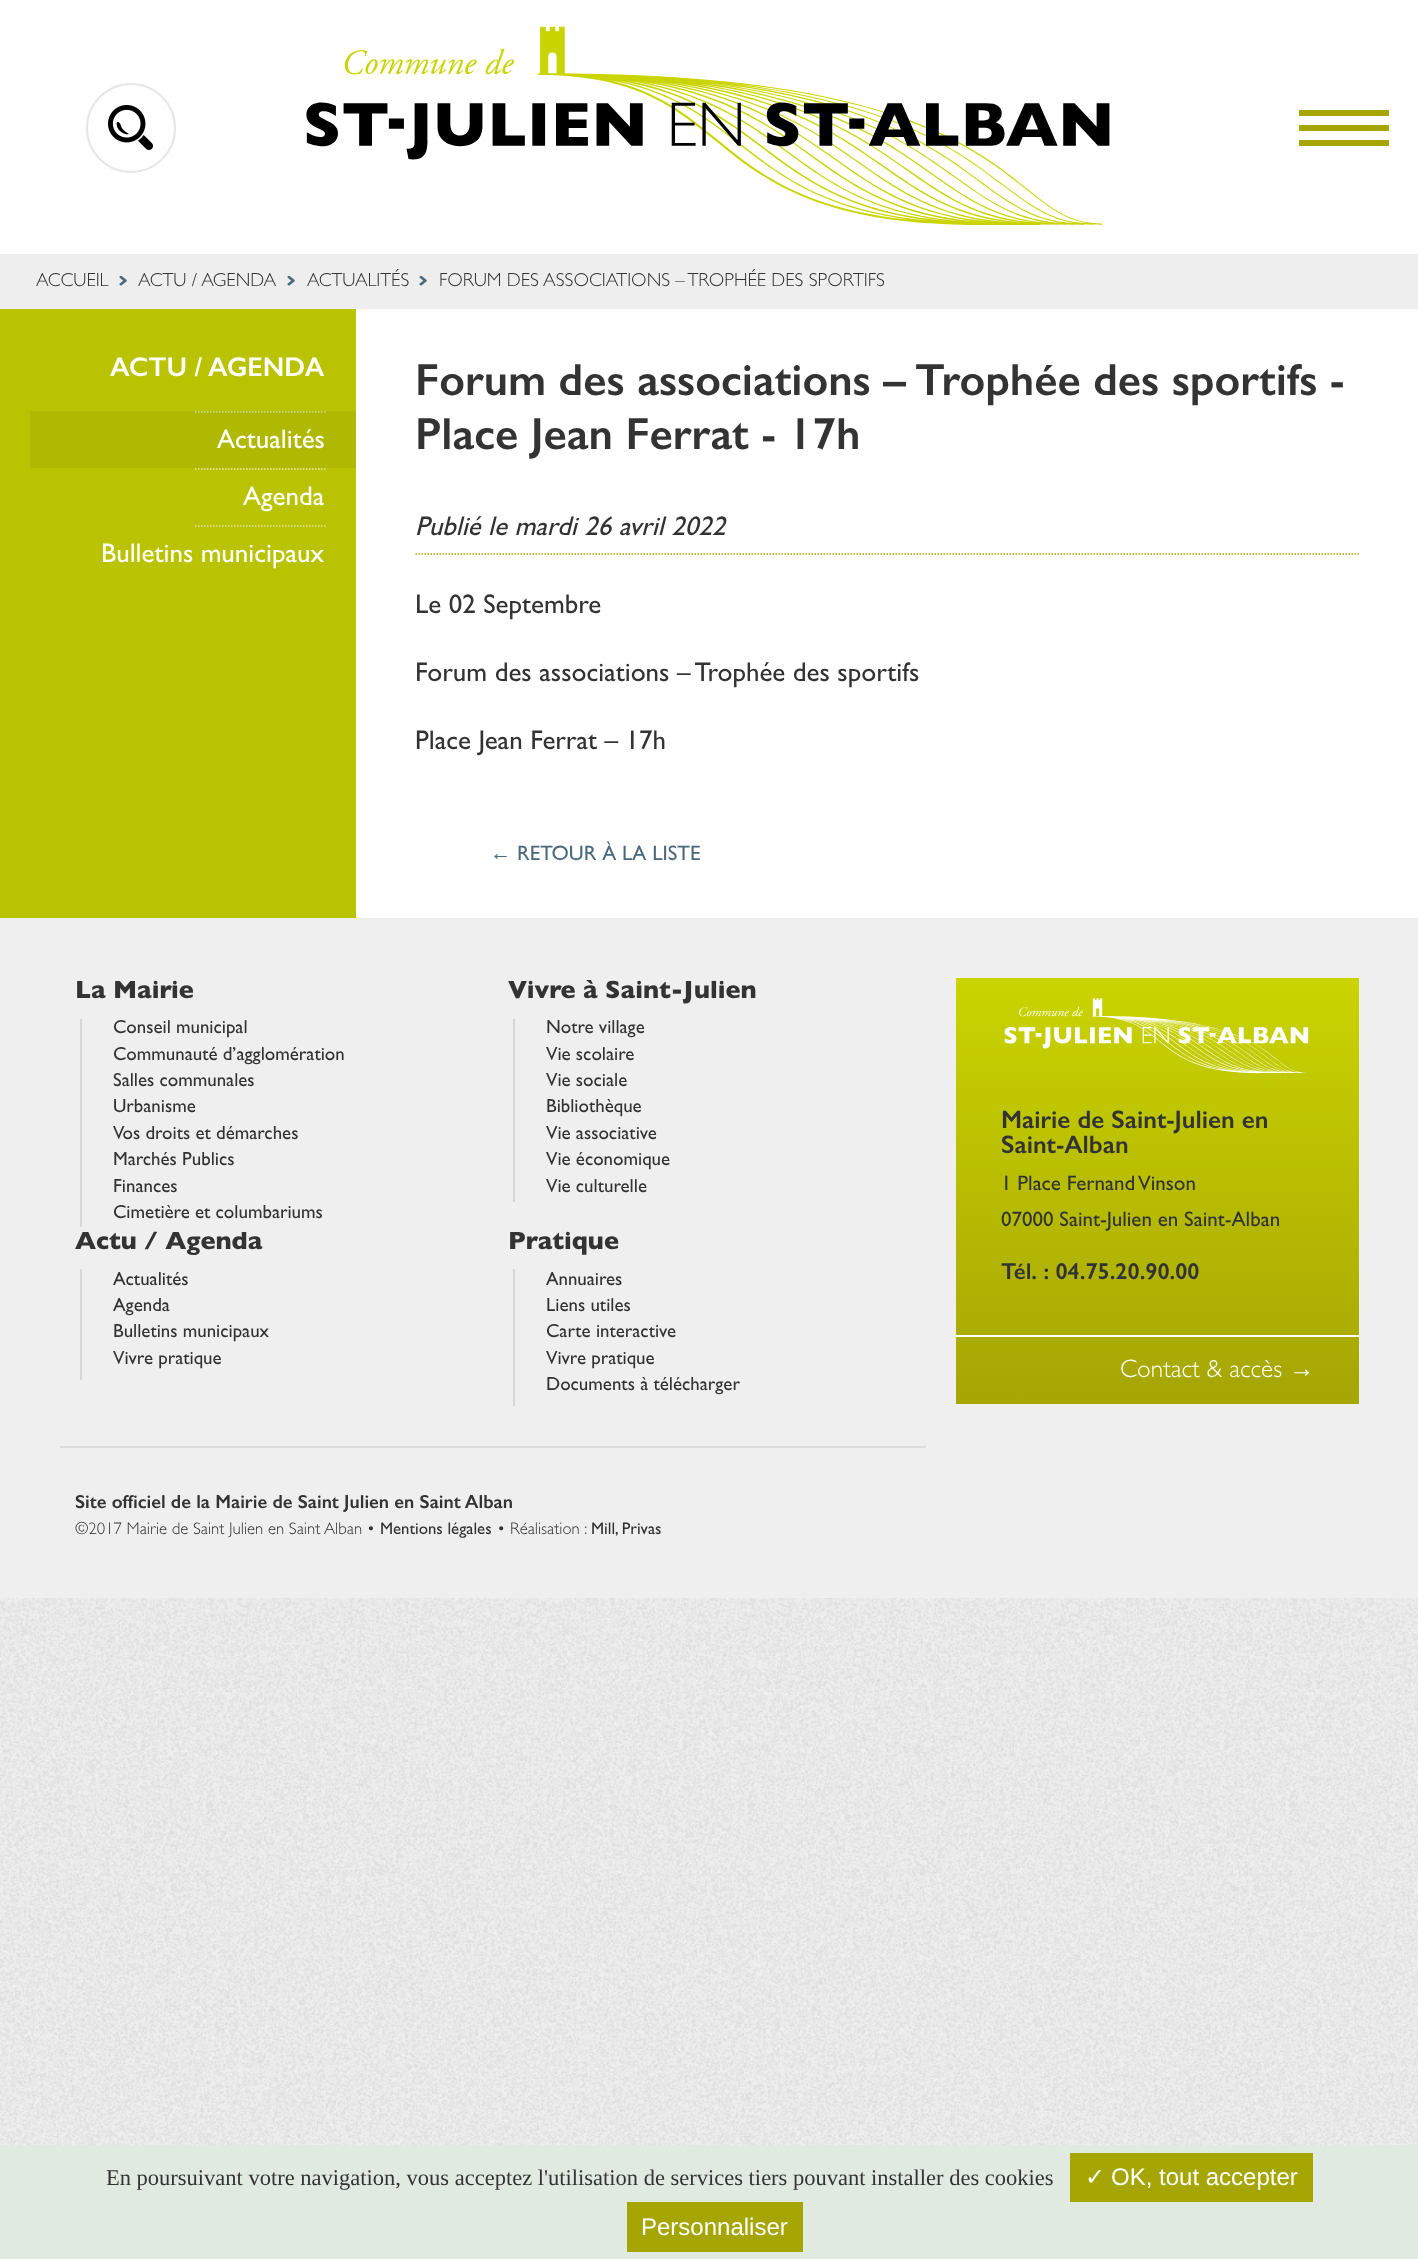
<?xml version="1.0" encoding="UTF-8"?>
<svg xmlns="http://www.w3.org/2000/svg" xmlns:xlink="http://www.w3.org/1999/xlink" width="1418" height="2259">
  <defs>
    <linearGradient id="g1" gradientUnits="userSpaceOnUse" x1="1157" y1="978" x2="1157" y2="1404"><stop offset="0" stop-color="#cad400" /><stop offset="1" stop-color="#a5a504" /></linearGradient>
  </defs>
  <rect width="100%" height="100%" fill="#ffffff" />
  <image x="0" y="1598" width="1418" height="547" xlink:href="image1.png" />
  <rect x="1299" y="125" width="90" height="6" fill="#a5a504" />
  <rect x="1299" y="110" width="90" height="6" fill="#a5a504" />
  <rect x="1299" y="140" width="90" height="6" fill="#a5a504" />
  <circle cx="131" cy="128" r="44" fill="none" stroke="#e6e6e6" stroke-width="2" />
  <image x="108" y="105" width="45" height="45" xlink:href="image2.png" />
  <image x="306" y="26" width="804" height="199" xlink:href="image3.png" />
  <rect y="309" width="356" height="609" fill="#bac302" />
  <rect y="254" width="1418" height="55" fill="#eeeeee" />
  <image x="119" y="275" width="8" height="11" xlink:href="image4.png" />
  <image x="287" y="275" width="8" height="11" xlink:href="image4.png" />
  <image x="419" y="275" width="8" height="11" xlink:href="image4.png" />
  <path d="M 195 412 h 130.5" fill="none" stroke="#e3e79a" stroke-width="1.5" stroke-dasharray="1.5 1.5" />
  <rect x="30" y="411" width="326" height="57" fill="#000000" fill-opacity="0.05" />
  <path d="M 195 469 h 130.5" fill="none" stroke="#e3e79a" stroke-width="1.5" stroke-dasharray="1.5 1.5" />
  <path d="M 195 526 h 130.5" fill="none" stroke="#e3e79a" stroke-width="1.5" stroke-dasharray="1.5 1.5" />
  <path d="M 415.5 554 h 943.5" fill="none" stroke="#a5a504" stroke-width="1.5" stroke-dasharray="1.5 1.5" />
  <rect y="918" width="1418" height="680" fill="#efefef" />
  <rect x="80" y="1019" width="2" height="208" fill="#d7d7d7" />
  <rect x="513" y="1019" width="2" height="183" fill="#d7d7d7" />
  <rect x="80" y="1269" width="2" height="111" fill="#d7d7d7" />
  <rect x="513" y="1269" width="2" height="137" fill="#d7d7d7" />
  <rect x="60" y="1446" width="866" height="2" fill="#dcdcdc" />
  <rect x="956" y="978" width="403" height="426" fill="url(#g1)" />
  <image x="1004" y="998" width="305" height="76" xlink:href="image5.png" />
  <rect x="956" y="1335" width="403" height="2" fill="#ffffff" />
  <rect y="2145" width="1418" height="114" fill="#e1eae1" />
  <rect x="1070" y="2153" width="243" height="49" fill="#a5a504" />
  <rect x="627" y="2202" width="176" height="50" fill="#a5a504" />
  <text x="36" y="286" style="font-family: Gill Sans; font-size: 18.9px; font-weight: 300; fill: #333333">ACCUEIL</text>
  <text x="138" y="286" style="font-family: Gill Sans; font-size: 18.9px; font-weight: 300; fill: #333333">ACTU / AGENDA</text>
  <text x="307" y="286" style="font-family: Gill Sans; font-size: 18.9px; font-weight: 300; fill: #333333">ACTUALITÉS</text>
  <text x="439" y="286" style="font-family: Gill Sans; font-size: 18.9px; font-weight: 300; fill: #333333">FORUM DES ASSOCIATIONS – TROPHÉE DES SPORTIFS</text>
  <text x="110" y="376" style="font-family: Gill Sans; font-size: 27px; font-weight: 600; fill: #ffffff">ACTU / AGENDA</text>
  <text x="217" y="448" style="font-family: Gill Sans; font-size: 27px; fill: #ffffff">Actualités</text>
  <text x="243" y="505" style="font-family: Gill Sans; font-size: 27px; fill: #ffffff">Agenda</text>
  <text x="101" y="562" style="font-family: Gill Sans; font-size: 27px; fill: #ffffff">Bulletins municipaux</text>
  <text x="415" y="395" style="font-family: Gill Sans; font-size: 45px; font-weight: 600; fill: #333333">Forum des associations – Trophée des sportifs -</text>
  <text x="415" y="449" style="font-family: Gill Sans; font-size: 45px; font-weight: 600; fill: #333333">Place Jean Ferrat - 17h</text>
  <text x="415" y="535" style="font-family: Gill Sans; font-size: 27px; font-style: italic; fill: #333333">Publié le mardi 26 avril 2022</text>
  <text x="415" y="613" style="font-family: Gill Sans; font-size: 27px; fill: #333333">Le 02 Septembre</text>
  <text x="415" y="681" style="font-family: Gill Sans; font-size: 27px; fill: #333333">Forum des associations – Trophée des sportifs</text>
  <text x="415" y="749" style="font-family: Gill Sans; font-size: 27px; fill: #333333">Place Jean Ferrat – 17h</text>
  <text x="490" y="860" style="font-family: Liberation Sans; font-size: 21px; fill: #4b697c">←</text>
  <text x="517" y="860" style="font-family: Gill Sans; font-size: 21px; fill: #4b697c">RETOUR À LA LISTE</text>
  <text x="75" y="998" style="font-family: Gill Sans; font-size: 25.25px; font-weight: bold; fill: #333333">La Mairie</text>
  <text x="113" y="1033" style="font-family: Gill Sans; font-size: 18.9px; fill: #333333">Conseil municipal</text>
  <text x="113" y="1060" style="font-family: Gill Sans; font-size: 18.9px; fill: #333333">Communauté d’agglomération</text>
  <text x="113" y="1086" style="font-family: Gill Sans; font-size: 18.9px; fill: #333333">Salles communales</text>
  <text x="113" y="1112" style="font-family: Gill Sans; font-size: 18.9px; fill: #333333">Urbanisme</text>
  <text x="113" y="1139" style="font-family: Gill Sans; font-size: 18.9px; fill: #333333">Vos droits et démarches</text>
  <text x="113" y="1165" style="font-family: Gill Sans; font-size: 18.9px; fill: #333333">Marchés Publics</text>
  <text x="113" y="1192" style="font-family: Gill Sans; font-size: 18.9px; fill: #333333">Finances</text>
  <text x="113" y="1218" style="font-family: Gill Sans; font-size: 18.9px; fill: #333333">Cimetière et columbariums</text>
  <text x="508" y="998" style="font-family: Gill Sans; font-size: 25.25px; font-weight: bold; fill: #333333">Vivre à Saint-Julien</text>
  <text x="546" y="1033" style="font-family: Gill Sans; font-size: 18.9px; fill: #333333">Notre village</text>
  <text x="546" y="1060" style="font-family: Gill Sans; font-size: 18.9px; fill: #333333">Vie scolaire</text>
  <text x="546" y="1086" style="font-family: Gill Sans; font-size: 18.9px; fill: #333333">Vie sociale</text>
  <text x="546" y="1112" style="font-family: Gill Sans; font-size: 18.9px; fill: #333333">Bibliothèque</text>
  <text x="546" y="1139" style="font-family: Gill Sans; font-size: 18.9px; fill: #333333">Vie associative</text>
  <text x="546" y="1165" style="font-family: Gill Sans; font-size: 18.9px; fill: #333333">Vie économique</text>
  <text x="546" y="1192" style="font-family: Gill Sans; font-size: 18.9px; fill: #333333">Vie culturelle</text>
  <text x="75" y="1249" style="font-family: Gill Sans; font-size: 25.25px; font-weight: bold; fill: #333333">Actu / Agenda</text>
  <text x="113" y="1285" style="font-family: Gill Sans; font-size: 18.9px; fill: #333333">Actualités</text>
  <text x="113" y="1311" style="font-family: Gill Sans; font-size: 18.9px; fill: #333333">Agenda</text>
  <text x="113" y="1337" style="font-family: Gill Sans; font-size: 18.9px; fill: #333333">Bulletins municipaux</text>
  <text x="113" y="1364" style="font-family: Gill Sans; font-size: 18.9px; fill: #333333">Vivre pratique</text>
  <text x="508" y="1249" style="font-family: Gill Sans; font-size: 25.25px; font-weight: bold; fill: #333333">Pratique</text>
  <text x="546" y="1285" style="font-family: Gill Sans; font-size: 18.9px; fill: #333333">Annuaires</text>
  <text x="546" y="1311" style="font-family: Gill Sans; font-size: 18.9px; fill: #333333">Liens utiles</text>
  <text x="546" y="1337" style="font-family: Gill Sans; font-size: 18.9px; fill: #333333">Carte interactive</text>
  <text x="546" y="1364" style="font-family: Gill Sans; font-size: 18.9px; fill: #333333">Vivre pratique</text>
  <text x="546" y="1390" style="font-family: Gill Sans; font-size: 18.9px; fill: #333333">Documents à télécharger</text>
  <text x="75" y="1508" style="font-family: Gill Sans; font-size: 18.9px; font-weight: 600; fill: #333333">Site officiel de la Mairie de Saint Julien en Saint Alban</text>
  <text x="75" y="1534" style="font-family: Gill Sans; font-size: 16.75px; font-weight: 300; fill: #333333">©2017 Mairie de Saint Julien en Saint Alban •</text>
  <text x="380" y="1534" style="font-family: Gill Sans; font-size: 16.75px; fill: #333333">Mentions légales</text>
  <text x="497" y="1534" style="font-family: Gill Sans; font-size: 16.75px; font-weight: 300; fill: #333333">• Réalisation :</text>
  <text x="591" y="1534" style="font-family: Gill Sans; font-size: 16.75px; fill: #333333">Mill, Privas</text>
  <text x="1001" y="1128" style="font-family: Gill Sans; font-size: 25.25px; font-weight: 600; fill: #333333">Mairie de Saint-Julien en</text>
  <text x="1001" y="1153" style="font-family: Gill Sans; font-size: 25.25px; font-weight: 600; fill: #333333">Saint-Alban</text>
  <text x="1001" y="1190" style="font-family: Gill Sans; font-size: 21px; fill: #333333">1 Place Fernand Vinson</text>
  <text x="1001" y="1226" style="font-family: Gill Sans; font-size: 21px; fill: #333333">07000 Saint-Julien en Saint-Alban</text>
  <text x="1001" y="1279" style="font-family: Gill Sans; font-size: 23px; font-weight: 600; fill: #333333">Tél. : 04.75.20.90.00</text>
  <text x="1120" y="1377" style="font-family: Gill Sans; font-size: 25.25px; font-weight: 300; fill: #ffffff">Contact &amp; accès</text>
  <text x="1289" y="1377" style="font-family: Liberation Sans; font-size: 25.25px; fill: #ffffff">→</text>
  <text x="106" y="2185" style="font-family: Liberation Serif; font-size: 22.5px; fill: #333333">En poursuivant votre navigation, vous acceptez l'utilisation de services tiers pouvant installer des cookies</text>
  <text x="1085" y="2185" style="font-family: DejaVu Sans; font-size: 24px; fill: #ffffff">✓</text>
  <text x="1111" y="2185" style="font-family: Liberation Sans; font-size: 24px; fill: #ffffff">OK, tout accepter</text>
  <text x="641" y="2235" style="font-family: Liberation Sans; font-size: 24px; fill: #ffffff">Personnaliser</text>
</svg>
